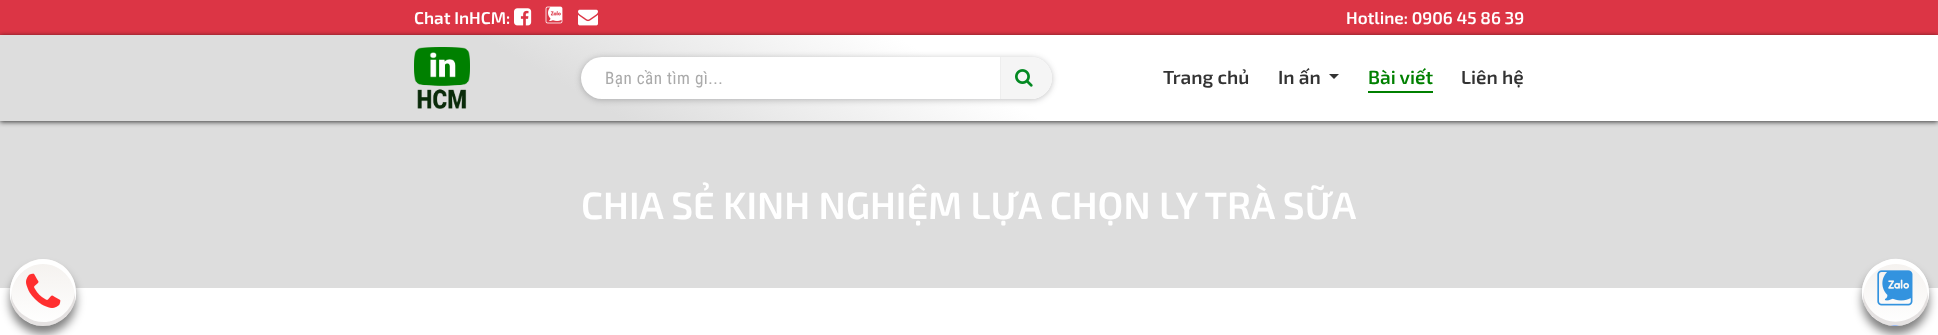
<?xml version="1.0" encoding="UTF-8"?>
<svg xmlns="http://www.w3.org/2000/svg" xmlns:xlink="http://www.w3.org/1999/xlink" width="1938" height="335">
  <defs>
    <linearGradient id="g1" gradientUnits="userSpaceOnUse" x1="708" y1="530" x2="1230" y2="-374"><stop offset="0.3" stop-color="#dddddd" /><stop offset="0.5" stop-color="#ffffff" /></linearGradient>
    <linearGradient id="g2" gradientUnits="userSpaceOnUse" x1="43" y1="259" x2="43" y2="326"><stop offset="0" stop-color="#f4f1ee" /><stop offset="1" stop-color="#ffffff" /></linearGradient>
    <linearGradient id="g3" gradientUnits="userSpaceOnUse" x1="1896" y1="259" x2="1896" y2="326"><stop offset="0" stop-color="#f4f1ee" /><stop offset="1" stop-color="#ffffff" /></linearGradient>
  </defs>
  <rect width="100%" height="100%" fill="#ffffff" />
  <rect width="1938" height="35" fill="#dc3545" />
  <image x="514" y="8" width="18" height="18" xlink:href="image1.png" />
  <image x="545" y="6" width="18" height="18" xlink:href="image2.png" />
  <image x="578" y="9" width="20" height="17" xlink:href="image3.png" />
  <rect y="121" width="1938" height="167" fill="#dddddd" />
  <rect y="36" width="1938" height="86" fill="#000000" fill-opacity="0.75" filter="blur(2.5px)" />
  <rect y="35" width="1938" height="86" fill="url(#g1)" />
  <image x="414" y="47" width="56" height="62" xlink:href="image4.png" />
  <rect x="581" y="58" width="471" height="42" rx="21" fill="#202124" fill-opacity="0.28" filter="blur(3px)" />
  <rect x="581" y="57" width="471" height="42" rx="21" fill="#ffffff" />
  <path d="M 1000 57 h 31 c 11.5 0 21 9.5 21 21 c 0 11.5 -9.5 21 -21 21 h -31 z" fill="#f5f5f5" />
  <rect x="1000" y="57" width="1" height="42" fill="#eeeeee" />
  <image x="1015" y="69" width="18" height="18" xlink:href="image5.png" />
  <path d="M 1329 74 h 10 l -5 5 z" fill="#333333" />
  <rect x="1368" y="91" width="65" height="2" fill="#008000" />
  <rect x="10" y="267" width="66" height="67" rx="33" fill="#000000" fill-opacity="0.5" filter="blur(5px)" />
  <rect x="10" y="259" width="66" height="67" rx="33" fill="url(#g2)" />
  <path d="M 13 277 c -4 9 -4 20 0 29 c 2 6 6 11 12 14 c 29 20 62 -13 48 -43 c 11 29 -21 58 -48 39 c -5 -3 -9 -8 -12 -14 c -3 -8 -3 -17 0 -25 z" fill="#ccc6c5" fill-opacity="0.5" />
  <path d="M 43 264 c 21 0 36 21 31 41 c 11 -30 -22 -59 -49 -40 c -6 3 -10 8 -12 14 c -4 8 -4 18 -1 26 c -5 -20 10 -41 31 -41 z" fill="#ffffff" />
  <image x="26" y="273" width="35" height="35" xlink:href="image6.png" />
  <rect x="1862" y="267" width="67" height="67" rx="33.5" fill="#000000" fill-opacity="0.5" filter="blur(5px)" />
  <circle cx="1895.5" cy="292.5" r="33.5" fill="url(#g3)" />
  <path d="M 1865 278 c -14 29 20 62 49 42 c 6 -3 10 -9 12 -14 c 4 -9 4 -20 0 -28 c 3 8 3 16 -1 24 c -2 6 -6 11 -11 14 c -27 18 -60 -10 -49 -38 z" fill="#ccc6c5" fill-opacity="0.5" />
  <path d="M 1896 264 c 20 0 36 20 31 40 c 11 -30 -23 -58 -50 -39 c -6 3 -10 9 -12 14 c -4 8 -4 17 -1 25 c -5 -20 12 -40 32 -40 z" fill="#ffffff" />
  <image x="1877" y="270" width="36" height="36" xlink:href="image7.png" />
  <image x="1891" y="325" width="8" height="1" xlink:href="image8.png" />
  <text x="414" y="24" style="font-family: 'Exo 2'; font-size: 17.1px; font-weight: 600; fill: #ffffff">Chat InHCM:</text>
  <text x="1346" y="24" style="font-family: 'Exo 2'; font-size: 17.1px; font-weight: 600; fill: #ffffff">Hotline: 0906 45 86 39</text>
  <text x="605" y="84" style="font-family: Roboto Condensed; font-size: 17.1px; letter-spacing: 0.5px; fill: #aaaaaa">Bạn cần tìm gì...</text>
  <text x="1163" y="84" style="font-family: 'Exo 2'; font-size: 19px; font-weight: 600; fill: #333333">Trang chủ</text>
  <text x="1278" y="84" style="font-family: 'Exo 2'; font-size: 19px; font-weight: 600; fill: #333333">In ấn</text>
  <text x="1368" y="84" style="font-family: 'Exo 2'; font-size: 19px; font-weight: 600; fill: #008000">Bài viết</text>
  <text x="1461" y="84" style="font-family: 'Exo 2'; font-size: 19px; font-weight: 600; fill: #333333">Liên hệ</text>
  <text x="581" y="219" style="font-family: 'Exo 2'; font-size: 38px; font-weight: 600; fill: #ffffff">CHIA SẺ KINH NGHIỆM LỰA CHỌN LY TRÀ SỮA</text>
</svg>
